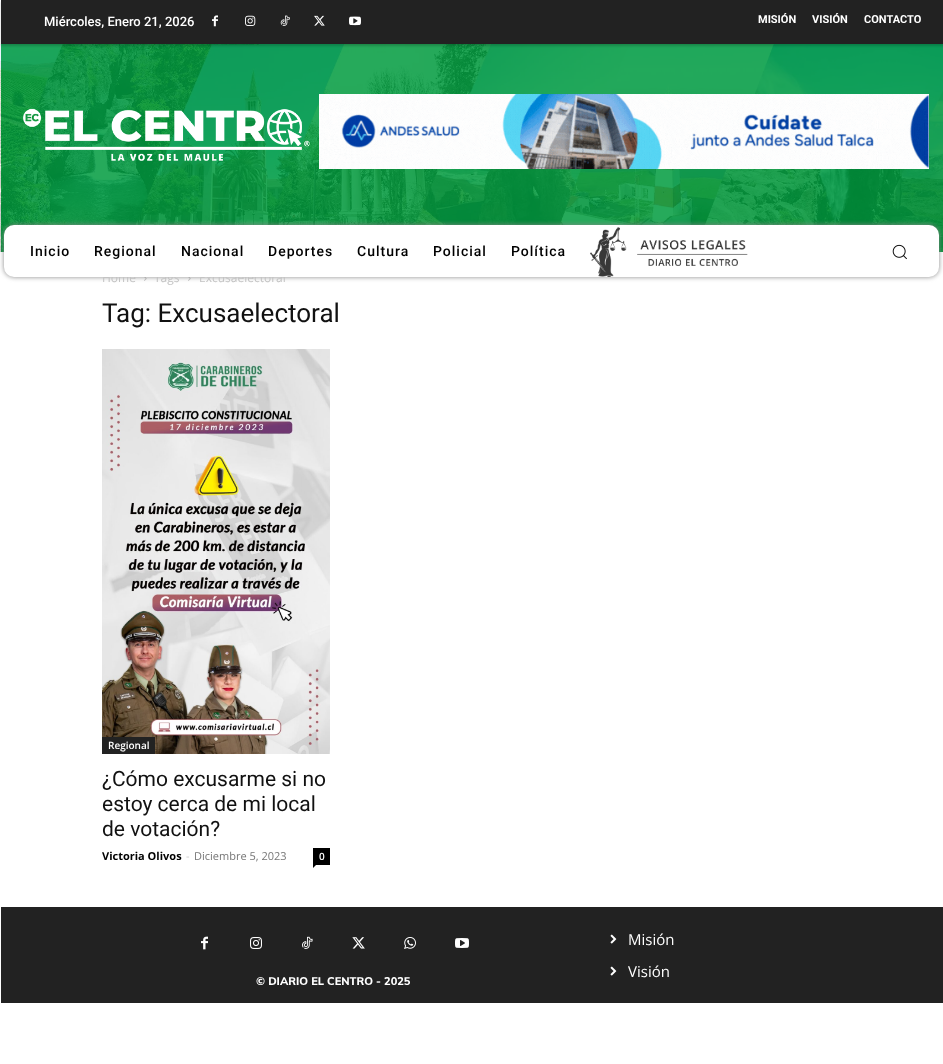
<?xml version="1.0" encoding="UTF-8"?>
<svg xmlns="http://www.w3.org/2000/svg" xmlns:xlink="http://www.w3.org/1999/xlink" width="943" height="1064">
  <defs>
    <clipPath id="clip1"><path d="M 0 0 h 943 v 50 h -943 z m 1 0 h 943 v 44 h -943 z" clip-rule="evenodd" /></clipPath>
  </defs>
  <rect width="100%" height="100%" fill="#ffffff" />
  <rect x="1" width="942" height="44" fill="#222222" />
  <image x="212" y="15" width="6" height="12" xlink:href="image1.png" />
  <image x="245" y="15" width="11" height="11" xlink:href="image2.png" />
  <image x="280" y="15" width="10" height="11" xlink:href="image3.png" />
  <image x="314" y="15" width="11" height="11" xlink:href="image4.png" />
  <image x="349" y="16" width="12" height="10" xlink:href="image5.png" />
  <image x="0" y="44" width="943" height="208" xlink:href="image6.png" />
  <g clip-path="url(#clip1)">
    <rect x="1" y="2" width="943" height="44" fill="#000000" fill-opacity="0.19" filter="blur(1px)" />
  </g>
  <image x="23" y="108" width="287" height="53" xlink:href="image7.png" />
  <image x="319" y="94" width="610" height="75" xlink:href="image8.png" />
  <image x="144" y="277" width="3" height="4" xlink:href="image11.png" />
  <image x="188" y="277" width="3" height="4" xlink:href="image11.png" />
  <rect x="4" y="225" width="935" height="52" rx="10" fill="#888888" filter="blur(2.5px)" />
  <image x="102" y="349" width="228" height="405" xlink:href="image12.png" />
  <rect x="102" y="737" width="53" height="17" fill="#222222" />
  <rect x="313" y="848" width="17" height="17" fill="#000000" />
  <path d="M 313 865 h 3 l -3 3 z" fill="#000000" />
  <rect x="1" y="907" width="942" height="96" fill="#222222" />
  <image x="610" y="934" width="7" height="10" xlink:href="image13.png" />
  <image x="610" y="966" width="7" height="10" xlink:href="image13.png" />
  <image x="201" y="936" width="7" height="14" xlink:href="image14.png" />
  <image x="250" y="937" width="12" height="12" xlink:href="image15.png" />
  <image x="302" y="936" width="11" height="13" xlink:href="image16.png" />
  <image x="352" y="937" width="13" height="12" xlink:href="image17.png" />
  <image x="404" y="937" width="12" height="12" xlink:href="image18.png" />
  <image x="455" y="938" width="14" height="10" xlink:href="image19.png" />
  <text x="44" y="26" style="font-family: Roboto; font-size: 13px; font-weight: 500; fill: #ffffff">Miércoles, Enero 21, 2026</text>
  <text x="758" y="23" style="font-family: Roboto; font-size: 11px; font-weight: bold; fill: #ffffff">MISIÓN</text>
  <text x="812" y="23" style="font-family: Roboto; font-size: 11px; font-weight: bold; fill: #ffffff">VISIÓN</text>
  <text x="864" y="23" style="font-family: Roboto; font-size: 11px; font-weight: bold; fill: #ffffff">CONTACTO</text>
  <text x="102" y="282" style="font-family: Open Sans; font-size: 12px; fill: #c3c3c3">Home</text>
  <text x="154" y="282" style="font-family: Open Sans; font-size: 12px; fill: #c3c3c3">Tags</text>
  <text x="199" y="282" style="font-family: Open Sans; font-size: 12px; fill: #c3c3c3">Excusaelectoral</text>
  <rect x="4" y="225" width="935" height="52" rx="10" fill="#ffffff" />
  <image x="892" y="244" width="15" height="16" xlink:href="image10.png" />
  <image x="590" y="227" width="158" height="50" xlink:href="image9.png" />
  <text x="511" y="256" style="font-family: Roboto; font-size: 14px; font-weight: 500; letter-spacing: 1px; fill: #000000">Política</text>
  <text x="433" y="256" style="font-family: Roboto; font-size: 14px; font-weight: 500; letter-spacing: 1px; fill: #000000">Policial</text>
  <text x="357" y="256" style="font-family: Roboto; font-size: 14px; font-weight: 500; letter-spacing: 1px; fill: #000000">Cultura</text>
  <text x="268" y="256" style="font-family: Roboto; font-size: 14px; font-weight: 500; letter-spacing: 1px; fill: #000000">Deportes</text>
  <text x="181" y="256" style="font-family: Roboto; font-size: 14px; font-weight: 500; letter-spacing: 1px; fill: #000000">Nacional</text>
  <text x="94" y="256" style="font-family: Roboto; font-size: 14px; font-weight: 500; letter-spacing: 1px; fill: #000000">Regional</text>
  <text x="30" y="256" style="font-family: Roboto; font-size: 14px; font-weight: 500; letter-spacing: 1px; fill: #000000">Inicio</text>
  <text x="102" y="322" style="font-family: Roboto; font-size: 26px; fill: #111111">Tag: Excusaelectoral</text>
  <text x="108" y="749" style="font-family: Open Sans; font-size: 10px; font-weight: 600; fill: #ffffff">Regional</text>
  <text x="102" y="786" style="font-family: Roboto; font-size: 21px; fill: #111111">¿Cómo excusarme si no</text>
  <text x="102" y="811" style="font-family: Roboto; font-size: 21px; fill: #111111">estoy cerca de mi local</text>
  <text x="102" y="836" style="font-family: Roboto; font-size: 21px; fill: #111111">de votación?</text>
  <text x="102" y="860" style="font-family: Open Sans; font-size: 11px; font-weight: bold; fill: #000000">Victoria Olivos</text>
  <text x="186" y="860" style="font-family: Open Sans; font-size: 11px; fill: #cccccc">-</text>
  <text x="194" y="860" style="font-family: Open Sans; font-size: 11px; fill: #767676">Diciembre 5, 2023</text>
  <text x="319" y="860" style="font-family: Open Sans; font-size: 10px; font-weight: 600; fill: #ffffff">0</text>
  <text x="628" y="945" style="font-family: Open Sans; font-size: 15px; fill: #ffffff">Misión</text>
  <text x="628" y="977" style="font-family: Open Sans; font-size: 15px; fill: #ffffff">Visión</text>
  <text x="256" y="985" style="font-family: Muli; font-size: 11px; font-weight: 800; fill: #ffffff">© DIARIO EL CENTRO - 2025</text>
</svg>
